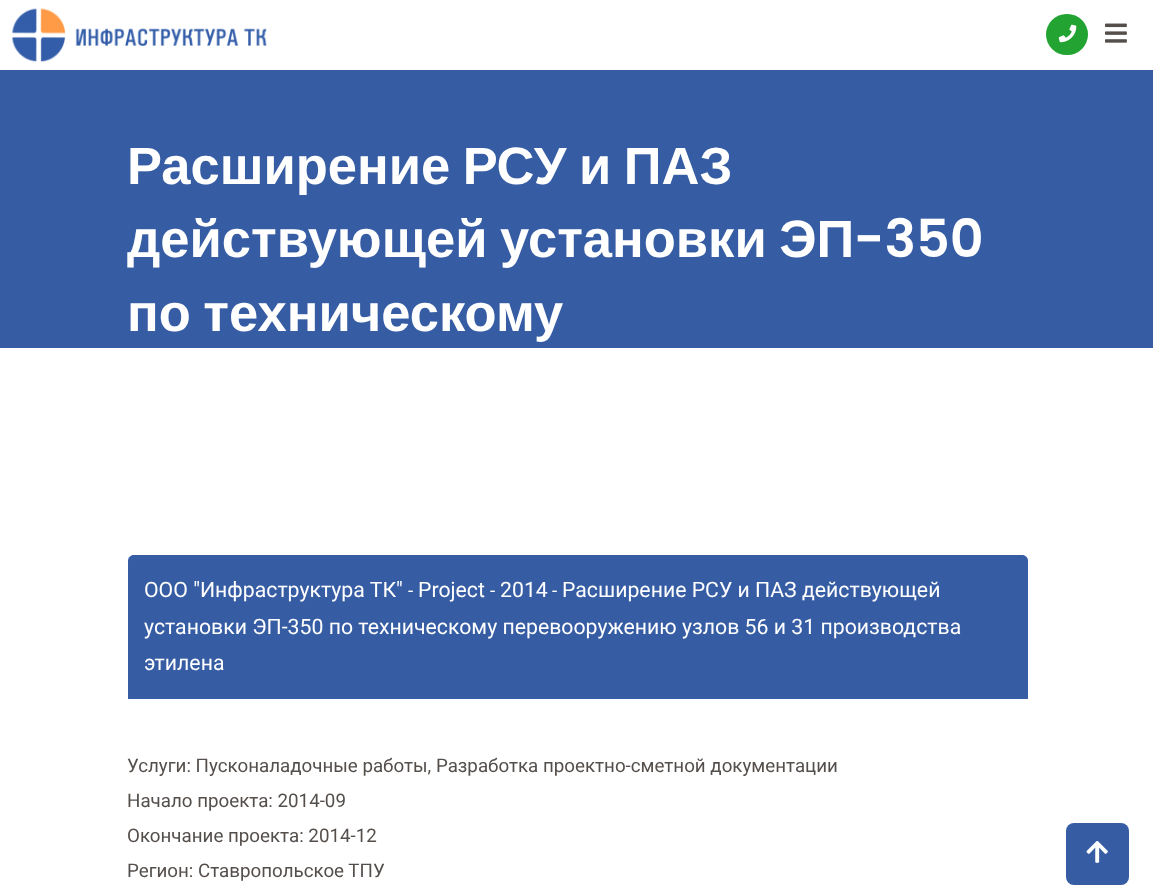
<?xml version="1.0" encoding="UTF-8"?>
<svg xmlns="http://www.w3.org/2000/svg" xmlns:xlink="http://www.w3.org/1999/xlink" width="1153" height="891">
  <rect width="100%" height="100%" fill="#ffffff" />
  <image x="12" y="8" width="255" height="54" xlink:href="image1.png" />
  <rect x="1046" y="14" width="42" height="41" rx="20.5" fill="#23a332" />
  <image x="1058" y="24" width="19" height="19" xlink:href="image2.png" />
  <image x="1105" y="23" width="22" height="20" xlink:href="image3.png" />
  <rect y="70" width="1153" height="278" fill="#365da4" />
  <path d="M 134 555 h 888 c 3.5 0 6 2.5 6 6 v 138 h -900 v -138 c 0 -3.5 2.5 -6 6 -6 z" fill="#365da4" />
  <rect x="1066" y="823" width="63" height="62" rx="8" fill="#365da4" />
  <image x="1086" y="841" width="22" height="22" xlink:href="image4.png" />
  <text x="127" y="184" word-spacing="-2" style="font-family: Liberation Sans; font-size: 52.5px; font-weight: bold; fill: #ffffff">Расширение РСУ и ПАЗ</text>
  <text x="127" y="257" word-spacing="-2" style="font-family: Liberation Sans; font-size: 52.5px; font-weight: bold; fill: #ffffff">действующей установки ЭП</text>
  <text x="854" y="257" style="font-family: Poppins; font-size: 52.5px; font-weight: 600; fill: #ffffff">-350</text>
  <text x="127" y="331" word-spacing="-2" style="font-family: Liberation Sans; font-size: 52.5px; font-weight: bold; fill: #ffffff">по техническому</text>
  <text x="144" y="597" style="font-family: Roboto; font-size: 21.25px; fill: #ffffff">ООО "Инфраструктура ТК"</text>
  <text x="408" y="597" style="font-family: Roboto; font-size: 18.75px; fill: #ffffff">-</text>
  <text x="418" y="597" style="font-family: Roboto; font-size: 21.25px; fill: #ffffff">Project</text>
  <text x="490" y="597" style="font-family: Roboto; font-size: 18.75px; fill: #ffffff">-</text>
  <text x="500" y="597" style="font-family: Roboto; font-size: 21.25px; fill: #ffffff">2014</text>
  <text x="552" y="597" style="font-family: Roboto; font-size: 18.75px; fill: #ffffff">-</text>
  <text x="562" y="597" style="font-family: Roboto; font-size: 21.25px; fill: #ffffff">Расширение РСУ и ПАЗ действующей</text>
  <text x="144" y="634" style="font-family: Roboto; font-size: 21.25px; fill: #ffffff">установки ЭП-350 по техническому перевооружению узлов 56 и 31 производства</text>
  <text x="144" y="670" style="font-family: Roboto; font-size: 21.25px; fill: #ffffff">этилена</text>
  <text x="127" y="772" style="font-family: Roboto; font-size: 18.75px; fill: #554f4c">Услуги: Пусконаладочные работы, Разработка проектно-сметной документации</text>
  <text x="127" y="807" style="font-family: Roboto; font-size: 18.75px; fill: #554f4c">Начало проекта: 2014-09</text>
  <text x="127" y="842" style="font-family: Roboto; font-size: 18.75px; fill: #554f4c">Окончание проекта: 2014-12</text>
  <text x="127" y="877" style="font-family: Roboto; font-size: 18.75px; fill: #554f4c">Регион: Ставропольское ТПУ</text>
</svg>
